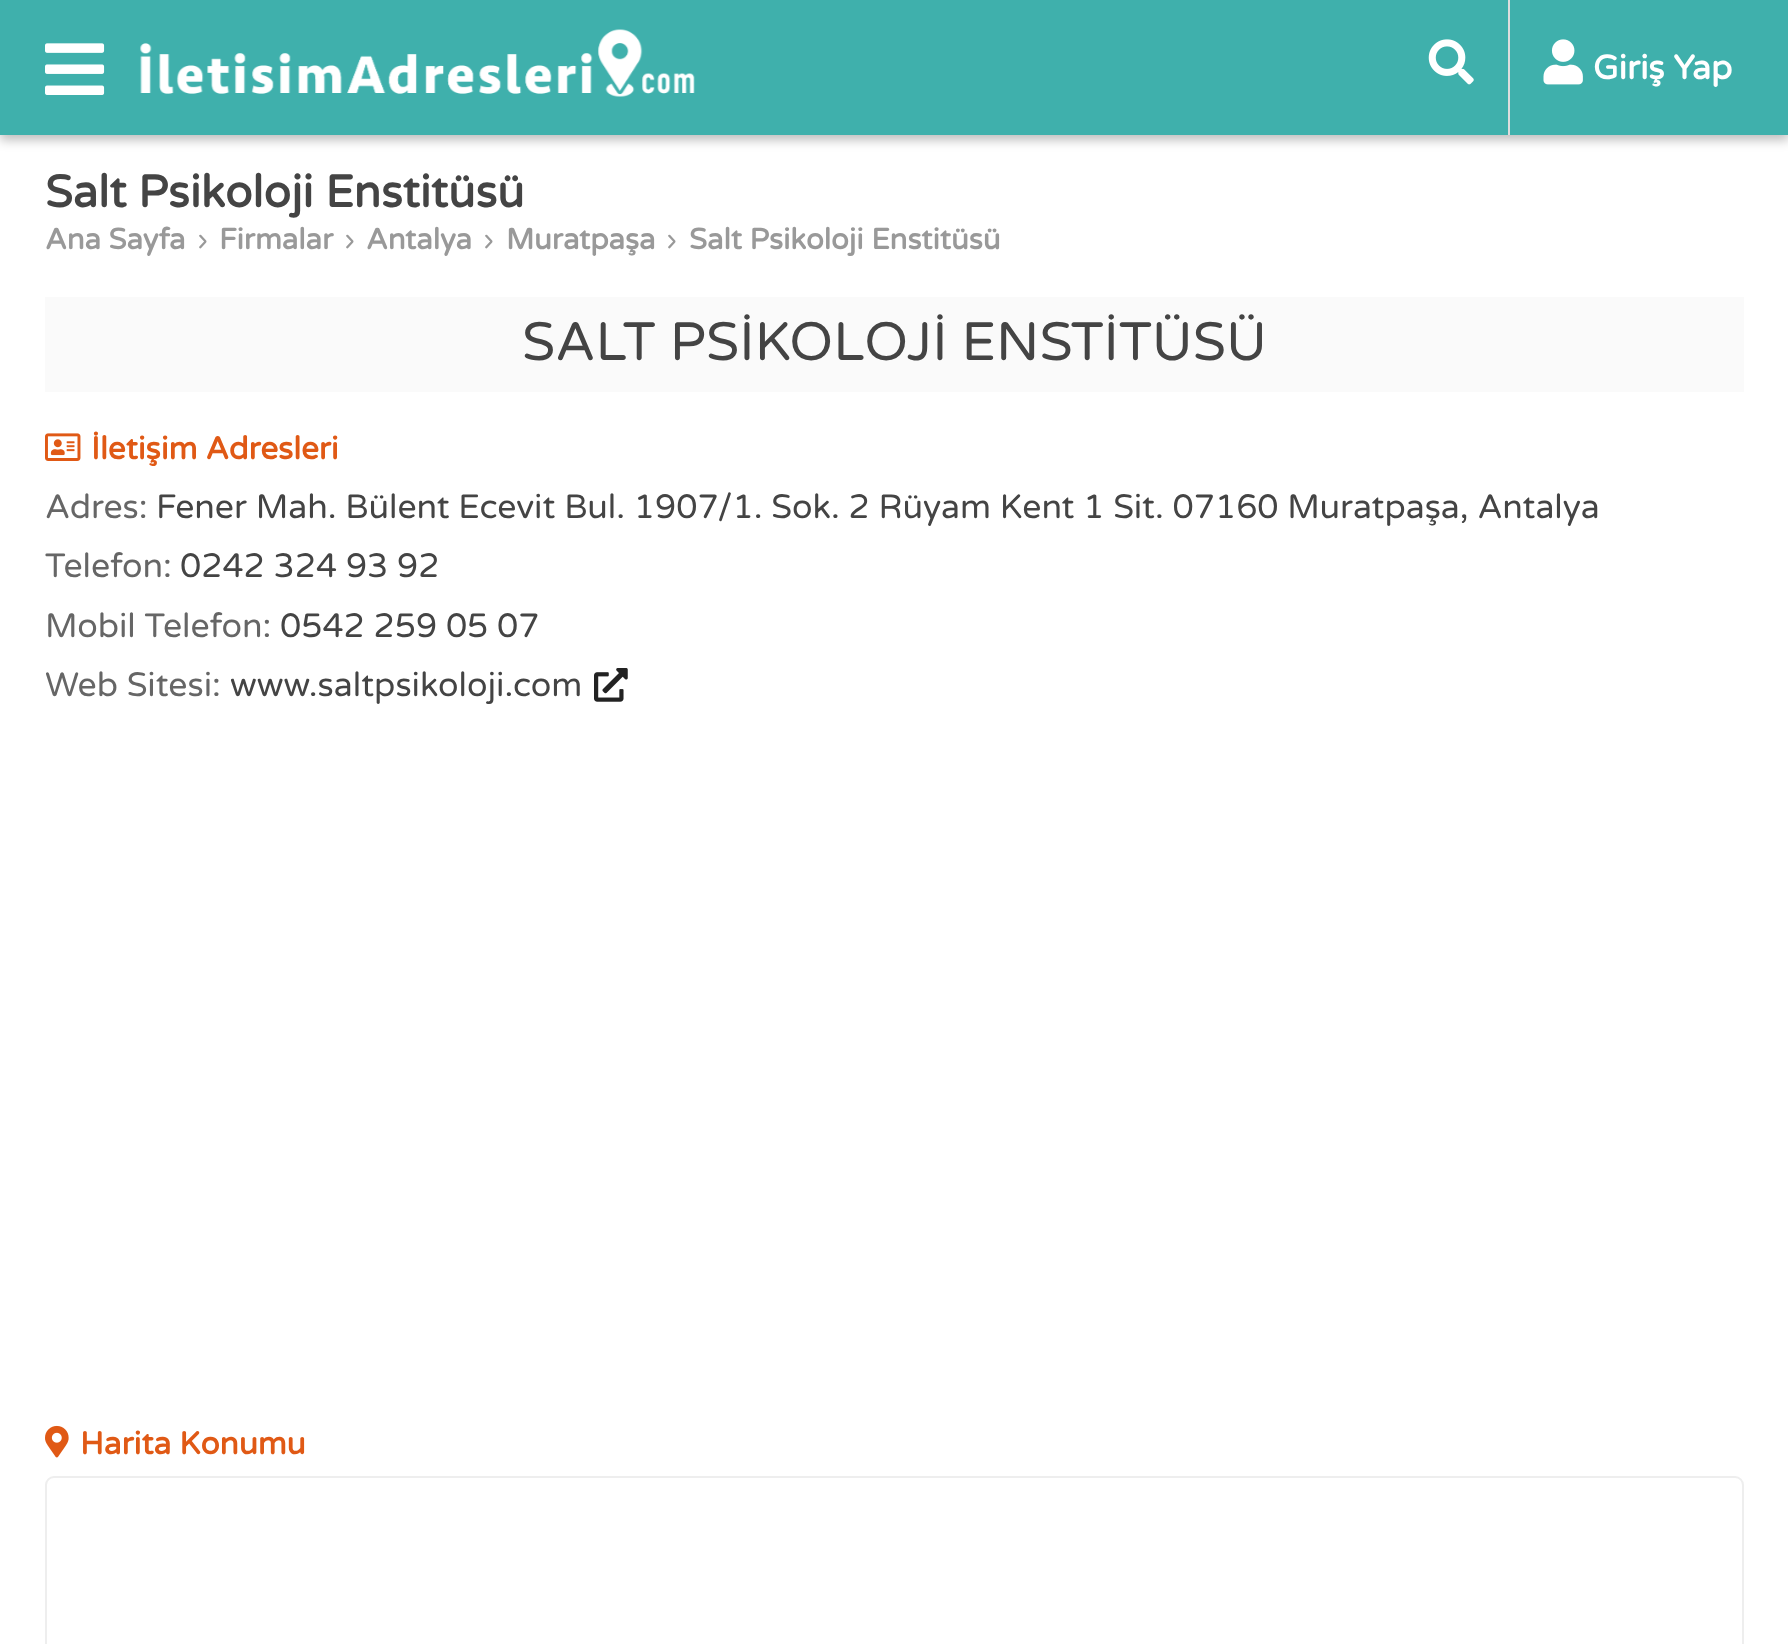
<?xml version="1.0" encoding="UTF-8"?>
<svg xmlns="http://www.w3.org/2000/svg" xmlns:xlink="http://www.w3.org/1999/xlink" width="1788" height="1644">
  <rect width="100%" height="100%" fill="#ffffff" />
  <rect y="5" width="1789" height="135" fill="#000000" fill-opacity="0.26" filter="blur(5.5px)" />
  <rect width="1788" height="135" fill="#3fb0ac" />
  <image x="45" y="43" width="60" height="52" xlink:href="image1.png" />
  <image x="140" y="29" width="555" height="68" xlink:href="image2.png" />
  <image x="1428" y="39" width="46" height="46" xlink:href="image3.png" />
  <rect x="1508" width="2" height="135" fill="#dddddd" />
  <image x="1543" y="39" width="40" height="46" xlink:href="image4.png" />
  <rect x="45" y="297" width="1699" height="95" fill="#fafafa" />
  <image x="45" y="433" width="36" height="28" xlink:href="image5.png" />
  <image x="594" y="668" width="34" height="34" xlink:href="image6.png" />
  <image x="45" y="1425" width="24" height="33" xlink:href="image7.png" />
  <rect x="46" y="1477" width="1697" height="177" rx="8" fill="none" stroke="#eeeeee" stroke-width="2" />
  <text x="1593" y="79" style="font-family: Varela Round; font-size: 33.75px; font-weight: bold; fill: #ffffff">Giriş Yap</text>
  <text x="45" y="207" style="font-family: Varela Round; font-size: 45px; font-weight: bold; fill: #444444">Salt Psikoloji Enstitüsü</text>
  <text x="45" y="249" style="font-family: Varela Round; font-size: 29.25px; font-weight: bold; fill: #999999">Ana Sayfa</text>
  <text x="197" y="249" style="font-family: Varela Round; font-size: 29.25px; fill: #999999">›</text>
  <text x="219" y="249" style="font-family: Varela Round; font-size: 29.25px; font-weight: bold; fill: #999999">Firmalar</text>
  <text x="344" y="249" style="font-family: Varela Round; font-size: 29.25px; fill: #999999">›</text>
  <text x="366" y="249" style="font-family: Varela Round; font-size: 29.25px; font-weight: bold; fill: #999999">Antalya</text>
  <text x="483" y="249" style="font-family: Varela Round; font-size: 29.25px; fill: #999999">›</text>
  <text x="506" y="249" style="font-family: Varela Round; font-size: 29.25px; font-weight: bold; fill: #999999">Muratpaşa</text>
  <text x="666" y="249" style="font-family: Varela Round; font-size: 29.25px; fill: #999999">›</text>
  <text x="689" y="249" style="font-family: Varela Round; font-size: 29.25px; font-weight: bold; fill: #999999">Salt Psikoloji Enstitüsü</text>
  <text x="522" y="360" style="font-family: Varela Round; font-size: 54px; fill: #444444">SALT PSİKOLOJİ ENSTİTÜSÜ</text>
  <text x="91" y="459" style="font-family: Varela Round; font-size: 31.5px; font-weight: bold; fill: #e05915">İletişim Adresleri</text>
  <text x="45" y="518" style="font-family: Varela Round; font-size: 33.75px; fill: #666666">Adres:</text>
  <text x="156" y="518" style="font-family: Varela Round; font-size: 33.75px; fill: #444444">Fener Mah. Bülent Ecevit Bul. 1907/1. Sok. 2 Rüyam Kent 1 Sit. 07160 Muratpaşa, Antalya</text>
  <text x="45" y="577" style="font-family: Varela Round; font-size: 33.75px; fill: #666666">Telefon:</text>
  <text x="180" y="577" style="font-family: Varela Round; font-size: 33.75px; fill: #444444">0242 324 93 92</text>
  <text x="45" y="637" style="font-family: Varela Round; font-size: 33.75px; fill: #666666">Mobil Telefon:</text>
  <text x="280" y="637" style="font-family: Varela Round; font-size: 33.75px; fill: #444444">0542 259 05 07</text>
  <text x="45" y="696" style="font-family: Varela Round; font-size: 33.75px; fill: #666666">Web Sitesi:</text>
  <text x="230" y="696" style="font-family: Varela Round; font-size: 33.75px; fill: #444444">www.saltpsikoloji.com</text>
  <text x="80" y="1454" style="font-family: Varela Round; font-size: 31.5px; font-weight: bold; fill: #e05915">Harita Konumu</text>
</svg>
